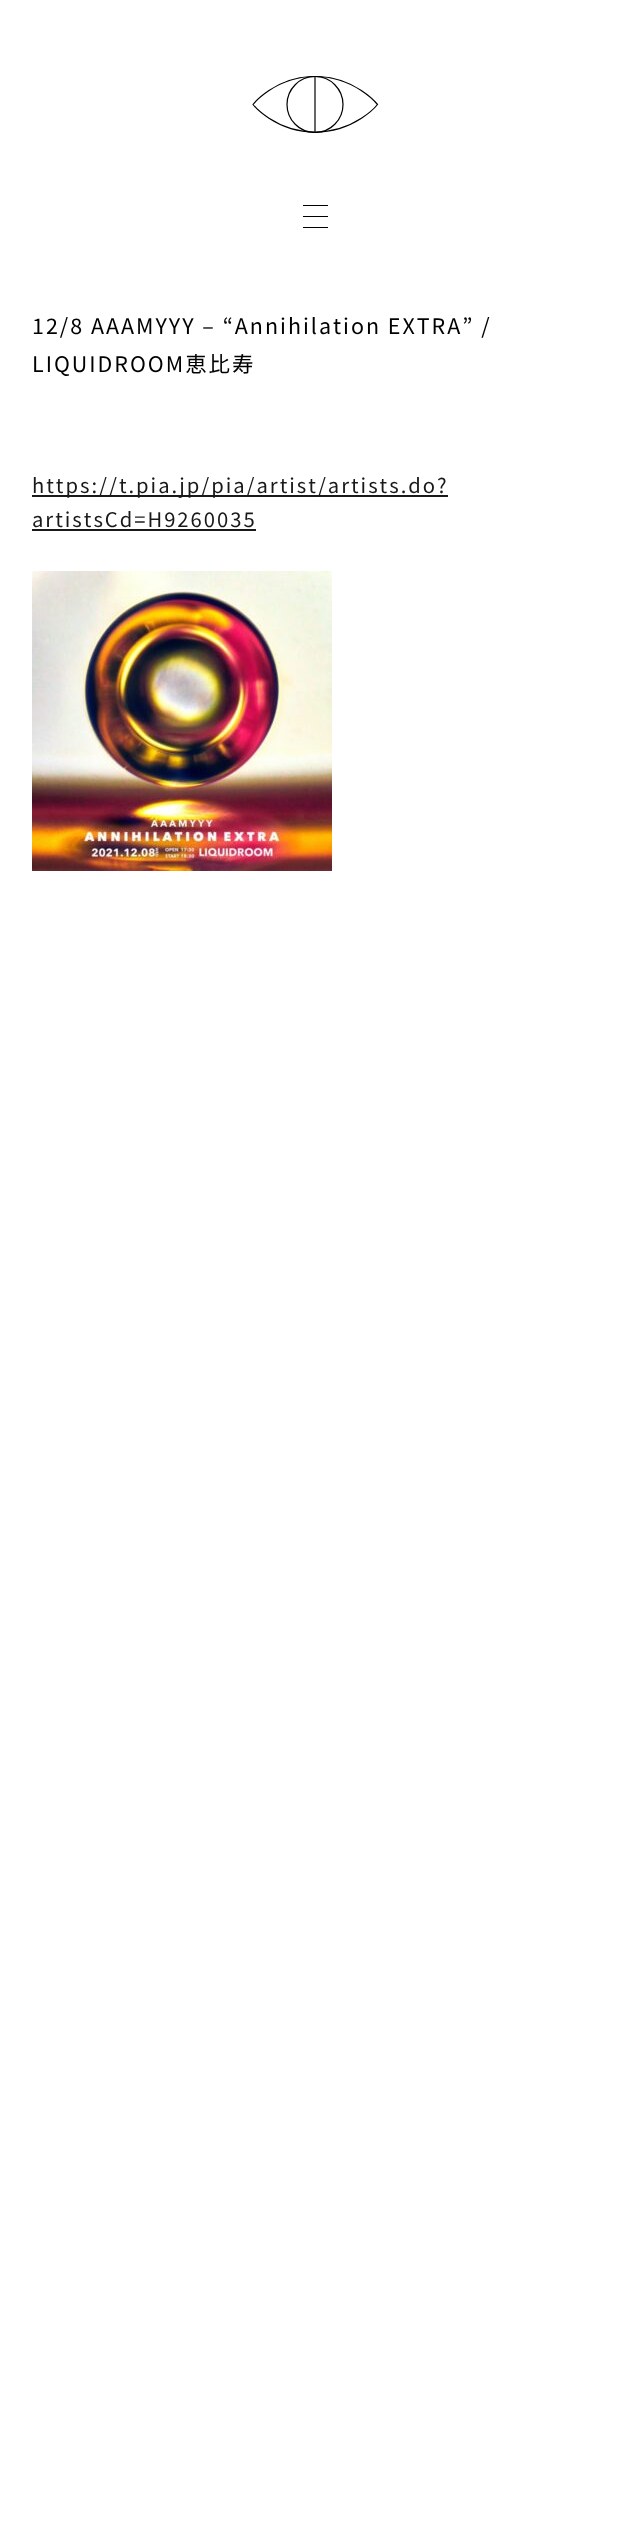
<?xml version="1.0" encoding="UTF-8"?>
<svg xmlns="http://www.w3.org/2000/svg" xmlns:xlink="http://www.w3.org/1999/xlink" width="631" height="2524">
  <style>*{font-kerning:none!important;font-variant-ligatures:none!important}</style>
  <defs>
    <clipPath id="clip1"><rect x="252" y="76" width="127" height="57" /></clipPath>
  </defs>
  <rect width="100%" height="100%" fill="#ffffff" />
  <g clip-path="url(#clip1)">
    <circle cx="315" cy="104.5" r="28" fill="none" stroke="#000000" stroke-width="1.2" />
    <path d="M 315 132 c -40 0 -62 -27.5 -62 -27.5 c 0 0 22 -28 62 -28 c 40 0 62.5 28 62.5 28 c 0 0 -22 27.5 -62.5 27.5 z" fill="none" stroke="#000000" stroke-width="1.2" />
  </g>
  <path d="M 315 76.5 v 56" fill="none" stroke="#000000" stroke-width="1.2" />
  <rect x="303" y="205" width="25" height="1" fill="#000000" />
  <rect x="303" y="216" width="25" height="1" fill="#000000" />
  <rect x="303" y="227" width="25" height="1" fill="#000000" />
  <rect x="32" y="495" width="416" height="2" fill="#191919" />
  <rect x="32" y="529" width="224" height="2" fill="#191919" />
  <image x="32" y="571" width="300" height="300" xlink:href="image1.png" />
  <text x="32" y="334" style="font-family: Noto Sans JP; font-size: 21.45px; font-weight: 100; letter-spacing: 2px; fill: #000000">12/8 AAAMYYY – “Annihilation EXTRA” /</text>
  <text x="32" y="372" style="font-family: Noto Sans JP; font-size: 21.45px; font-weight: 100; letter-spacing: 2px; fill: #000000">LIQUIDROOM恵比寿</text>
  <text x="32" y="493" style="font-family: Noto Sans JP; font-size: 20.2px; font-weight: 100; letter-spacing: 2px; fill: #191919">https://t.pia.jp/pia/artist/artists.do?</text>
  <text x="32" y="527" style="font-family: Noto Sans JP; font-size: 20.2px; font-weight: 100; letter-spacing: 2px; fill: #191919">artistsCd=H9260035</text>
</svg>
